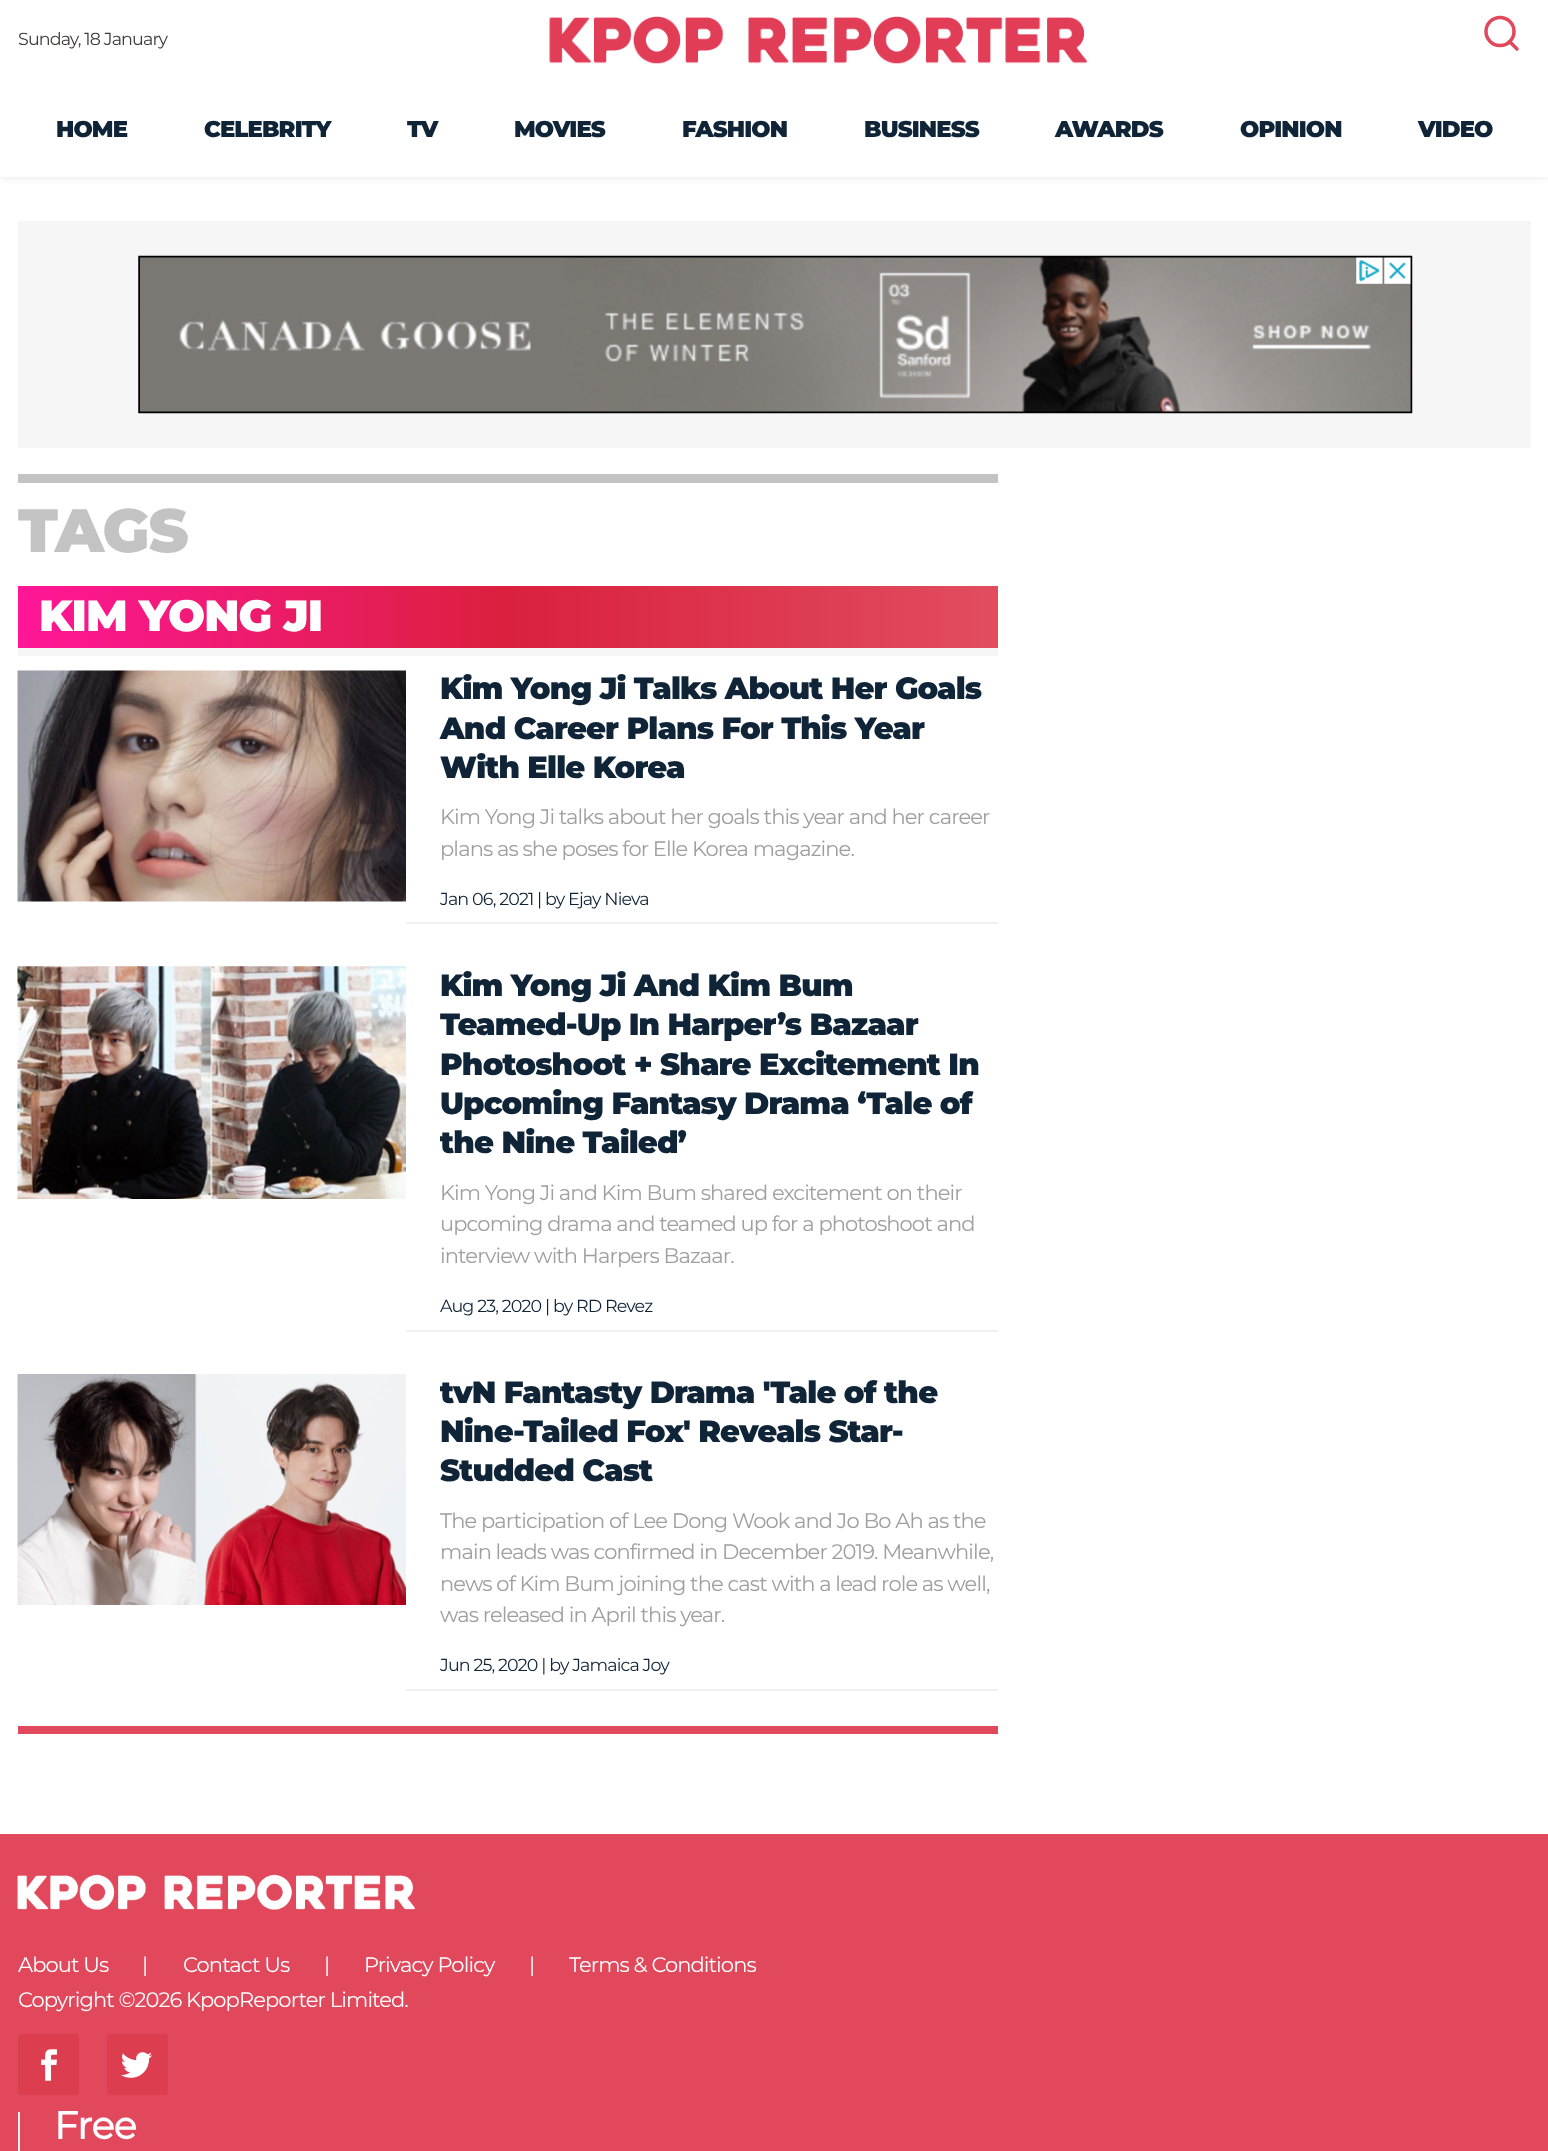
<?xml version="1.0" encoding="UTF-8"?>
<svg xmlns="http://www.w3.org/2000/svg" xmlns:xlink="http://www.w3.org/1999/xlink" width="1548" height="2151">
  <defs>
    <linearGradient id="g1" gradientUnits="userSpaceOnUse" x1="18" y1="617" x2="998" y2="617"><stop offset="0" stop-color="#ff1697" /><stop offset="0.5" stop-color="#da203d" /><stop offset="1" stop-color="#e14d5f" /></linearGradient>
  </defs>
  <rect width="100%" height="100%" fill="#ffffff" />
  <rect y="-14" width="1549" height="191" fill="#000000" fill-opacity="0.1" filter="blur(4.5px)" />
  <rect width="1548" height="177" fill="#ffffff" />
  <image x="549" y="16" width="538" height="48" xlink:href="image1.png" />
  <circle cx="1500" cy="31.5" r="14" fill="none" stroke="#e1485c" stroke-width="3.5" />
  <path d="M 1517 49 l -7.5 -7.5" fill="none" stroke="#e1485c" stroke-width="3.5" stroke-linecap="round" stroke-linejoin="round" />
  <rect x="18" y="221" width="1513" height="227" fill="#f6f6f6" />
  <image x="138" y="255" width="1275" height="159" xlink:href="image2.png" />
  <rect x="18" y="474" width="980" height="9" fill="#c3c3c3" />
  <rect x="18" y="586" width="980" height="62" fill="url(#g1)" />
  <rect x="18" y="648" width="980" height="8" fill="#f6f6f6" />
  <image x="17" y="670" width="389" height="232" xlink:href="image3.png" />
  <rect x="406" y="922" width="592" height="2" fill="#f0f0f0" />
  <image x="17" y="966" width="389" height="233" xlink:href="image4.png" />
  <rect x="406" y="1330" width="592" height="2" fill="#f0f0f0" />
  <image x="17" y="1374" width="389" height="231" xlink:href="image5.png" />
  <rect x="406" y="1689" width="592" height="2" fill="#f0f0f0" />
  <rect x="18" y="1726" width="980" height="8" fill="#e1485c" />
  <rect y="1834" width="1548" height="317" fill="#e1485c" />
  <image x="17" y="1874" width="398" height="36" xlink:href="image6.png" />
  <rect x="18" y="2034" width="61" height="61" rx="4" fill="#dc3e50" />
  <image x="41" y="2049" width="16" height="32" xlink:href="image7.png" />
  <rect x="19" y="2035" width="59" height="59" rx="3" fill="none" stroke="#dc3e50" stroke-width="2" />
  <rect x="107" y="2034" width="61" height="61" rx="4" fill="#dc3e50" />
  <image x="121" y="2052" width="31" height="26" xlink:href="image8.png" />
  <rect x="108" y="2035" width="59" height="59" rx="3" fill="none" stroke="#dc3e50" stroke-width="2" />
  <rect x="18" y="2112" width="2" height="39" fill="#eeeeee" />
  <text x="18" y="45" style="font-family: Montserrat; font-size: 17.5px; letter-spacing: -0.88px; fill: #3f3a39">Sunday, 18 January</text>
  <text x="56" y="137" style="font-family: Montserrat; font-size: 22.75px; font-weight: 900; letter-spacing: -0.88px; fill: #102438">HOME</text>
  <text x="204" y="137" style="font-family: Montserrat; font-size: 22.75px; font-weight: 900; letter-spacing: -0.88px; fill: #102438">CELEBRITY</text>
  <text x="407" y="137" style="font-family: Montserrat; font-size: 22.75px; font-weight: 900; letter-spacing: -0.88px; fill: #102438">TV</text>
  <text x="514" y="137" style="font-family: Montserrat; font-size: 22.75px; font-weight: 900; letter-spacing: -0.88px; fill: #102438">MOVIES</text>
  <text x="682" y="137" style="font-family: Montserrat; font-size: 22.75px; font-weight: 900; letter-spacing: -0.88px; fill: #102438">FASHION</text>
  <text x="864" y="137" style="font-family: Montserrat; font-size: 22.75px; font-weight: 900; letter-spacing: -0.88px; fill: #102438">BUSINESS</text>
  <text x="1055" y="137" style="font-family: Montserrat; font-size: 22.75px; font-weight: 900; letter-spacing: -0.88px; fill: #102438">AWARDS</text>
  <text x="1240" y="137" style="font-family: Montserrat; font-size: 22.75px; font-weight: 900; letter-spacing: -0.88px; fill: #102438">OPINION</text>
  <text x="1418" y="137" style="font-family: Montserrat; font-size: 22.75px; font-weight: 900; letter-spacing: -0.88px; fill: #102438">VIDEO</text>
  <text x="18" y="552" style="font-family: Montserrat; font-size: 61px; font-weight: 900; letter-spacing: -0.88px; fill: #c3c3c3">TAGS</text>
  <text x="39" y="631" style="font-family: Montserrat; font-size: 43.75px; font-weight: 900; letter-spacing: -0.88px; fill: #ffffff">KIM YONG JI</text>
  <text x="440" y="699" style="font-family: Montserrat; font-size: 30.6px; font-weight: 900; letter-spacing: -0.88px; fill: #102438">Kim Yong Ji Talks About Her Goals</text>
  <text x="440" y="739" style="font-family: Montserrat; font-size: 30.6px; font-weight: 900; letter-spacing: -0.88px; fill: #102438">And Career Plans For This Year</text>
  <text x="440" y="778" style="font-family: Montserrat; font-size: 30.6px; font-weight: 900; letter-spacing: -0.88px; fill: #102438">With Elle Korea</text>
  <text x="440" y="824" style="font-family: Montserrat; font-size: 21px; letter-spacing: -0.88px; fill: #9f9f9f">Kim Yong Ji talks about her goals this year and her career</text>
  <text x="440" y="856" style="font-family: Montserrat; font-size: 21px; letter-spacing: -0.88px; fill: #9f9f9f">plans as she poses for Elle Korea magazine.</text>
  <text x="440" y="905" style="font-family: Montserrat; font-size: 17.5px; letter-spacing: -0.88px; fill: #102438">Jan 06, 2021 | by Ejay Nieva</text>
  <text x="440" y="996" style="font-family: Montserrat; font-size: 30.6px; font-weight: 900; letter-spacing: -0.88px; fill: #102438">Kim Yong Ji And Kim Bum</text>
  <text x="440" y="1035" style="font-family: Montserrat; font-size: 30.6px; font-weight: 900; letter-spacing: -0.88px; fill: #102438">Teamed-Up In Harper’s Bazaar</text>
  <text x="440" y="1075" style="font-family: Montserrat; font-size: 30.6px; font-weight: 900; letter-spacing: -0.88px; fill: #102438">Photoshoot + Share Excitement In</text>
  <text x="440" y="1114" style="font-family: Montserrat; font-size: 30.6px; font-weight: 900; letter-spacing: -0.88px; fill: #102438">Upcoming Fantasy Drama ‘Tale of</text>
  <text x="440" y="1153" style="font-family: Montserrat; font-size: 30.6px; font-weight: 900; letter-spacing: -0.88px; fill: #102438">the Nine Tailed’</text>
  <text x="440" y="1200" style="font-family: Montserrat; font-size: 21px; letter-spacing: -0.88px; fill: #9f9f9f">Kim Yong Ji and Kim Bum shared excitement on their</text>
  <text x="440" y="1231" style="font-family: Montserrat; font-size: 21px; letter-spacing: -0.88px; fill: #9f9f9f">upcoming drama and teamed up for a photoshoot and</text>
  <text x="440" y="1263" style="font-family: Montserrat; font-size: 21px; letter-spacing: -0.88px; fill: #9f9f9f">interview with Harpers Bazaar.</text>
  <text x="440" y="1312" style="font-family: Montserrat; font-size: 17.5px; letter-spacing: -0.88px; fill: #102438">Aug 23, 2020 | by RD Revez</text>
  <text x="440" y="1403" style="font-family: Montserrat; font-size: 30.6px; font-weight: 900; letter-spacing: -0.88px; fill: #102438">tvN Fantasty Drama 'Tale of the</text>
  <text x="440" y="1442" style="font-family: Montserrat; font-size: 30.6px; font-weight: 900; letter-spacing: -0.88px; fill: #102438">Nine-Tailed Fox' Reveals Star-</text>
  <text x="440" y="1481" style="font-family: Montserrat; font-size: 30.6px; font-weight: 900; letter-spacing: -0.88px; fill: #102438">Studded Cast</text>
  <text x="440" y="1528" style="font-family: Montserrat; font-size: 21px; letter-spacing: -0.88px; fill: #9f9f9f">The participation of Lee Dong Wook and Jo Bo Ah as the</text>
  <text x="440" y="1559" style="font-family: Montserrat; font-size: 21px; letter-spacing: -0.88px; fill: #9f9f9f">main leads was confirmed in December 2019. Meanwhile,</text>
  <text x="440" y="1591" style="font-family: Montserrat; font-size: 21px; letter-spacing: -0.88px; fill: #9f9f9f">news of Kim Bum joining the cast with a lead role as well,</text>
  <text x="440" y="1622" style="font-family: Montserrat; font-size: 21px; letter-spacing: -0.88px; fill: #9f9f9f">was released in April this year.</text>
  <text x="440" y="1671" style="font-family: Montserrat; font-size: 17.5px; letter-spacing: -0.88px; fill: #102438">Jun 25, 2020 | by Jamaica Joy</text>
  <text x="18" y="1972" style="font-family: Montserrat; font-size: 21px; letter-spacing: -0.88px; fill: #ffffff">About Us</text>
  <text x="142" y="1972" style="font-family: Montserrat; font-size: 21px; letter-spacing: -0.88px; fill: #ffffff">|</text>
  <text x="183" y="1972" style="font-family: Montserrat; font-size: 21px; letter-spacing: -0.88px; fill: #ffffff">Contact Us</text>
  <text x="324" y="1972" style="font-family: Montserrat; font-size: 21px; letter-spacing: -0.88px; fill: #ffffff">|</text>
  <text x="364" y="1972" style="font-family: Montserrat; font-size: 21px; letter-spacing: -0.88px; fill: #ffffff">Privacy Policy</text>
  <text x="529" y="1972" style="font-family: Montserrat; font-size: 21px; letter-spacing: -0.88px; fill: #ffffff">|</text>
  <text x="569" y="1972" style="font-family: Montserrat; font-size: 21px; letter-spacing: -0.88px; fill: #ffffff">Terms &amp; Conditions</text>
  <text x="18" y="2007" style="font-family: Montserrat; font-size: 21px; letter-spacing: -0.88px; fill: #ffffff">Copyright ©2026 KpopReporter Limited.</text>
  <text x="54" y="2139" style="font-family: Montserrat; font-size: 38.5px; font-weight: bold; letter-spacing: -0.88px; fill: #ffffff">Free</text>
</svg>
